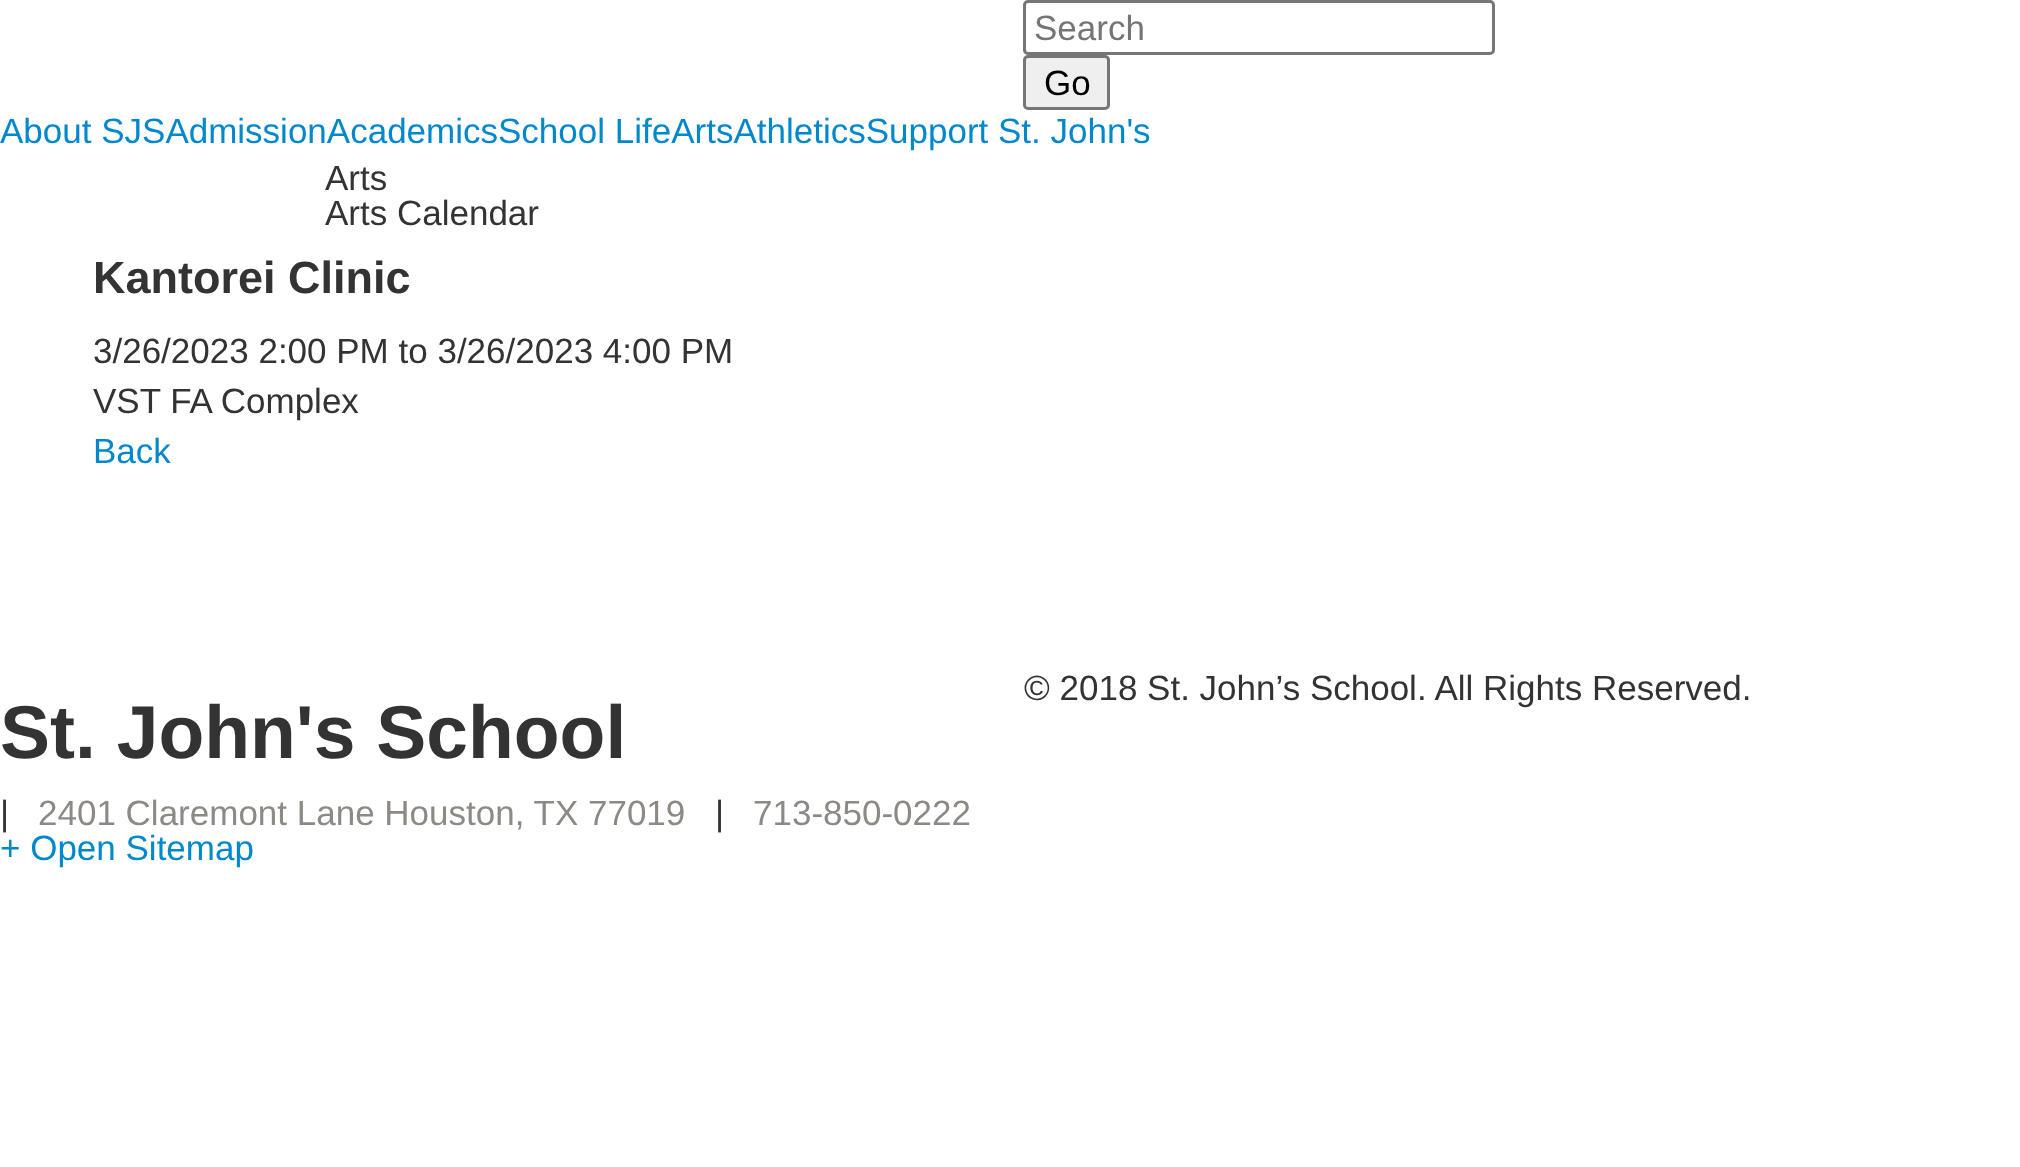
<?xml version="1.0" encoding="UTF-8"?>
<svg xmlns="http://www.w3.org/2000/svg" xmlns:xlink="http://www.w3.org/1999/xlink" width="2020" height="1167">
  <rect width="100%" height="100%" fill="#ffffff" />
  <rect x="1024.5" y="1.5" width="469" height="52" rx="3.5" fill="none" stroke="#767676" stroke-width="3" />
  <rect x="1024.5" y="56.5" width="84" height="52" rx="3.5" fill="#efefef" stroke="#767676" stroke-width="3" />
  <text x="1034" y="40" style="font-family: Liberation Sans; font-size: 35px; fill: #757575">Search</text>
  <text x="1044" y="95" style="font-family: Liberation Sans; font-size: 35px; fill: #000000">Go</text>
  <text x="0" y="143" style="font-family: Liberation Sans; font-size: 35px; fill: #0088cc">About SJSAdmissionAcademicsSchool LifeArtsAthleticsSupport St. John's</text>
  <text x="325" y="190" style="font-family: Liberation Sans; font-size: 35px; fill: #333333">Arts</text>
  <text x="325" y="225" style="font-family: Liberation Sans; font-size: 35px; fill: #333333">Arts Calendar</text>
  <text x="93" y="293" style="font-family: Liberation Sans; font-size: 45px; font-weight: bold; fill: #333333">Kantorei Clinic</text>
  <text x="93" y="363" style="font-family: Liberation Sans; font-size: 35px; fill: #333333">3/26/2023 2:00 PM to 3/26/2023 4:00 PM</text>
  <text x="93" y="413" style="font-family: Liberation Sans; font-size: 35px; fill: #333333">VST FA Complex</text>
  <text x="93" y="463" style="font-family: Liberation Sans; font-size: 35px; fill: #0088cc">Back</text>
  <text x="1024" y="700" style="font-family: Liberation Sans; font-size: 35px; fill: #333333">© 2018 St. John’s School. All Rights Reserved.</text>
  <text x="0" y="758" style="font-family: Liberation Sans; font-size: 75px; font-weight: bold; fill: #333333">St. John's School</text>
  <text x="0" y="825" style="font-family: Liberation Sans; font-size: 35px; fill: #333333">|</text>
  <text x="38" y="825" style="font-family: Liberation Sans; font-size: 35px; fill: #8d8a85">2401 Claremont Lane Houston, TX 77019</text>
  <text x="715" y="825" style="font-family: Liberation Sans; font-size: 35px; fill: #333333">|</text>
  <text x="753" y="825" style="font-family: Liberation Sans; font-size: 35px; fill: #8d8a85">713-850-0222</text>
  <text x="0" y="860" style="font-family: Liberation Sans; font-size: 35px; fill: #0088cc">+ Open Sitemap</text>
</svg>
